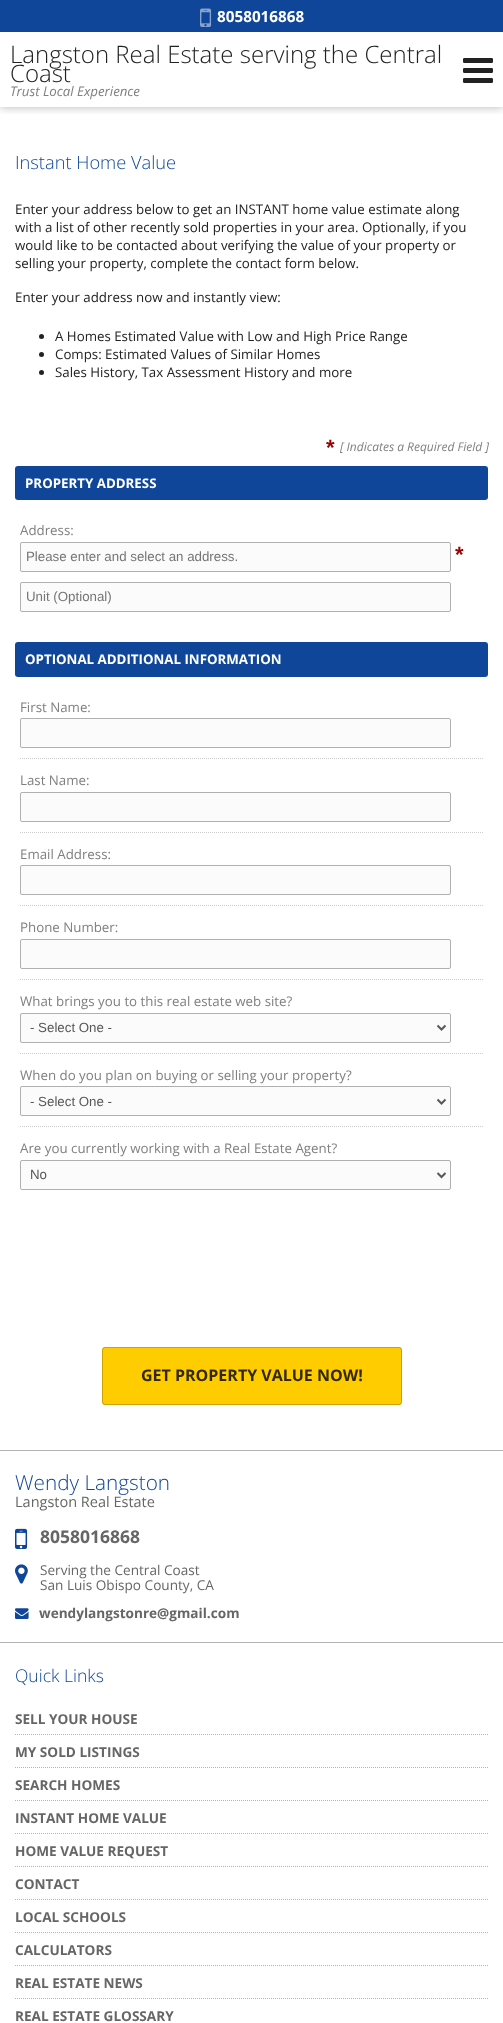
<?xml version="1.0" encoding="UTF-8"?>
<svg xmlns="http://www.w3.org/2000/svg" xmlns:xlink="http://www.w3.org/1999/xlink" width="503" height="2023">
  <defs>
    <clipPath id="clip1"><rect x="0" y="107" width="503" height="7" /></clipPath>
  </defs>
  <rect width="100%" height="100%" fill="#ffffff" />
  <g clip-path="url(#clip1)">
    <rect width="503" height="107" fill="#000000" fill-opacity="0.3" filter="blur(5px)" />
  </g>
  <rect width="503" height="32" fill="#0f4699" />
  <image x="200" y="8" width="12" height="19" xlink:href="image1.png" />
  <image x="463" y="58" width="30" height="25" xlink:href="image2.png" />
  <circle cx="41.5" cy="336.5" r="2.5" fill="#222222" />
  <circle cx="41.5" cy="354.5" r="2.5" fill="#222222" />
  <circle cx="41.5" cy="372.5" r="2.5" fill="#222222" />
  <rect x="15" y="466" width="473" height="34" rx="3" fill="#0f4699" />
  <rect x="20.5" y="542.5" width="430" height="29" rx="1.5" fill="#fbfbfb" stroke="#b0b0b0" />
  <rect x="20.5" y="582.5" width="430" height="29" rx="1.5" fill="#fbfbfb" stroke="#b0b0b0" />
  <rect x="15" y="642" width="473" height="35" rx="3" fill="#0f4699" />
  <rect x="20.5" y="718.5" width="430" height="29" rx="1.5" fill="#fbfbfb" stroke="#b0b0b0" />
  <path d="M 20 758.5 h 463" fill="none" stroke="#cccccc" stroke-dasharray="1 1" />
  <rect x="20.5" y="792.5" width="430" height="29" rx="1.5" fill="#fbfbfb" stroke="#b0b0b0" />
  <path d="M 20 832.5 h 463" fill="none" stroke="#cccccc" stroke-dasharray="1 1" />
  <rect x="20.5" y="865.5" width="430" height="29" rx="1.5" fill="#fbfbfb" stroke="#b0b0b0" />
  <path d="M 20 905.5 h 463" fill="none" stroke="#cccccc" stroke-dasharray="1 1" />
  <rect x="20.5" y="939.5" width="430" height="29" rx="1.5" fill="#fbfbfb" stroke="#b0b0b0" />
  <path d="M 20 979.5 h 463" fill="none" stroke="#cccccc" stroke-dasharray="1 1" />
  <rect x="20.5" y="1013.5" width="430" height="29" rx="1.5" fill="#fbfbfb" stroke="#b0b0b0" />
  <path d="M 437.5 1025.5 l 4 4 l 4 -4" fill="none" stroke="#585858" stroke-width="2" />
  <path d="M 20 1053.5 h 463" fill="none" stroke="#cccccc" stroke-dasharray="1 1" />
  <rect x="20.5" y="1086.5" width="430" height="29" rx="1.5" fill="#fbfbfb" stroke="#b0b0b0" />
  <path d="M 437.5 1099.5 l 4 4 l 4 -4" fill="none" stroke="#585858" stroke-width="2" />
  <path d="M 20 1126.5 h 463" fill="none" stroke="#cccccc" stroke-dasharray="1 1" />
  <rect x="20.5" y="1160.5" width="430" height="29" rx="1.5" fill="#fbfbfb" stroke="#b0b0b0" />
  <path d="M 437.5 1173 l 4 4 l 4 -4" fill="none" stroke="#585858" stroke-width="2" />
  <rect x="102" y="1347" width="300" height="58" rx="3" fill="#ffcc00" />
  <rect x="102.5" y="1347.5" width="299" height="57" rx="2.5" fill="none" stroke="#000000" stroke-opacity="0.2" />
  <rect y="1450" width="503" height="1" fill="#b3b3b3" />
  <image x="15" y="1528" width="13" height="21" xlink:href="image3.png" />
  <image x="15" y="1564" width="13" height="20" xlink:href="image4.png" />
  <image x="15" y="1608" width="14" height="11" xlink:href="image5.png" />
  <rect y="1642" width="503" height="1" fill="#b3b3b3" />
  <path d="M 15 1734.5 h 473" fill="none" stroke="#b3b3b3" stroke-dasharray="1 1" />
  <path d="M 15 1767.5 h 473" fill="none" stroke="#b3b3b3" stroke-dasharray="1 1" />
  <path d="M 15 1800.5 h 473" fill="none" stroke="#b3b3b3" stroke-dasharray="1 1" />
  <path d="M 15 1833.5 h 473" fill="none" stroke="#b3b3b3" stroke-dasharray="1 1" />
  <path d="M 15 1866.5 h 473" fill="none" stroke="#b3b3b3" stroke-dasharray="1 1" />
  <path d="M 15 1899.5 h 473" fill="none" stroke="#b3b3b3" stroke-dasharray="1 1" />
  <path d="M 15 1932.5 h 473" fill="none" stroke="#b3b3b3" stroke-dasharray="1 1" />
  <path d="M 15 1965.5 h 473" fill="none" stroke="#b3b3b3" stroke-dasharray="1 1" />
  <path d="M 15 1998.5 h 473" fill="none" stroke="#b3b3b3" stroke-dasharray="1 1" />
  <text x="217" y="22" style="font-family: Open Sans; font-size: 15.25px; font-weight: bold; fill: #ffffff">8058016868</text>
  <text x="10" y="63" style="font-family: Open Sans; font-size: 24px; font-weight: 300; fill: #222222">Langston Real Estate serving the Central</text>
  <text x="10" y="82" style="font-family: Open Sans; font-size: 24px; font-weight: 300; fill: #222222">Coast</text>
  <text x="10" y="96" style="font-family: Open Sans; font-size: 13.25px; font-style: italic; fill: #808080">Trust Local Experience</text>
  <text x="15" y="169" style="font-family: Open Sans; font-size: 18.25px; font-weight: 300; fill: #0f4699">Instant Home Value</text>
  <text x="15" y="214" style="font-family: Open Sans; font-size: 13.3px; fill: #222222">Enter your address below to get an INSTANT home value estimate along</text>
  <text x="15" y="232" style="font-family: Open Sans; font-size: 13.3px; fill: #222222">with a list of other recently sold properties in your area. Optionally, if you</text>
  <text x="15" y="250" style="font-family: Open Sans; font-size: 13.3px; fill: #222222">would like to be contacted about verifying the value of your property or</text>
  <text x="15" y="268" style="font-family: Open Sans; font-size: 13.3px; fill: #222222">selling your property, complete the contact form below.</text>
  <text x="15" y="302" style="font-family: Open Sans; font-size: 13.3px; fill: #222222">Enter your address now and instantly view:</text>
  <text x="55" y="341" style="font-family: Open Sans; font-size: 13.3px; fill: #222222">A Homes Estimated Value with Low and High Price Range</text>
  <text x="55" y="359" style="font-family: Open Sans; font-size: 13.3px; fill: #222222">Comps: Estimated Values of Similar Homes</text>
  <text x="55" y="377" style="font-family: Open Sans; font-size: 13.3px; fill: #222222">Sales History, Tax Assessment History and more</text>
  <text x="326" y="455" style="font-family: Liberation Sans; font-size: 22px; font-weight: bold; fill: #9d0000">*</text>
  <text x="340" y="451" style="font-family: Open Sans; font-size: 12px; font-style: italic; fill: #808080">[ Indicates a Required Field ]</text>
  <text x="25" y="488" style="font-family: Open Sans; font-size: 13.3px; font-weight: bold; fill: #ffffff">PROPERTY ADDRESS</text>
  <text x="20" y="535" style="font-family: Open Sans; font-size: 13.3px; fill: #808080">Address:</text>
  <text x="26" y="561" style="font-family: Liberation Sans; font-size: 13.3px; fill: #757575">Please enter and select an address.</text>
  <text x="455" y="562" style="font-family: Liberation Sans; font-size: 22px; font-weight: bold; fill: #9d0000">*</text>
  <text x="26" y="601" style="font-family: Liberation Sans; font-size: 13.3px; fill: #757575">Unit (Optional)</text>
  <text x="25" y="664" style="font-family: Open Sans; font-size: 13.3px; font-weight: bold; fill: #ffffff">OPTIONAL ADDITIONAL INFORMATION</text>
  <text x="20" y="712" style="font-family: Open Sans; font-size: 13.3px; fill: #808080">First Name:</text>
  <text x="20" y="785" style="font-family: Open Sans; font-size: 13.3px; fill: #808080">Last Name:</text>
  <text x="20" y="859" style="font-family: Open Sans; font-size: 13.3px; fill: #808080">Email Address:</text>
  <text x="20" y="932" style="font-family: Open Sans; font-size: 13.3px; fill: #808080">Phone Number:</text>
  <text x="20" y="1006" style="font-family: Open Sans; font-size: 13.3px; fill: #808080">What brings you to this real estate web site?</text>
  <text x="30" y="1032" style="font-family: Liberation Sans; font-size: 13.3px; fill: #585858">- Select One -</text>
  <text x="20" y="1080" style="font-family: Open Sans; font-size: 13.3px; fill: #808080">When do you plan on buying or selling your property?</text>
  <text x="30" y="1106" style="font-family: Liberation Sans; font-size: 13.3px; fill: #585858">- Select One -</text>
  <text x="20" y="1153" style="font-family: Open Sans; font-size: 13.3px; fill: #808080">Are you currently working with a Real Estate Agent?</text>
  <text x="30" y="1179" style="font-family: Liberation Sans; font-size: 13.3px; fill: #585858">No</text>
  <text x="141" y="1381" style="font-family: Open Sans; font-size: 16px; font-weight: bold; fill: #332900">GET PROPERTY VALUE NOW!</text>
  <text x="15" y="1490" style="font-family: Open Sans; font-size: 20.75px; font-weight: 300; fill: #0f4699">Wendy Langston</text>
  <text x="15" y="1507" style="font-family: Open Sans; font-size: 14.5px; fill: #666666">Langston Real Estate</text>
  <text x="40" y="1543" style="font-family: Open Sans; font-size: 17.5px; font-weight: bold; fill: #666666">8058016868</text>
  <text x="40" y="1575" style="font-family: Open Sans; font-size: 13.6px; fill: #666666">Serving the Central Coast</text>
  <text x="40" y="1590" style="font-family: Open Sans; font-size: 13.6px; fill: #666666">San Luis Obispo County, CA</text>
  <text x="39" y="1618" style="font-family: Open Sans; font-size: 13.6px; font-weight: bold; fill: #666666">wendylangstonre@gmail.com</text>
  <text x="15" y="1682" style="font-family: Open Sans; font-size: 17.5px; font-weight: 300; fill: #0f4699">Quick Links</text>
  <text x="15" y="1724" style="font-family: Open Sans; font-size: 13.6px; font-weight: bold; fill: #666666">SELL YOUR HOUSE</text>
  <text x="15" y="1757" style="font-family: Open Sans; font-size: 13.6px; font-weight: bold; fill: #666666">MY SOLD LISTINGS</text>
  <text x="15" y="1790" style="font-family: Open Sans; font-size: 13.6px; font-weight: bold; fill: #666666">SEARCH HOMES</text>
  <text x="15" y="1823" style="font-family: Open Sans; font-size: 13.6px; font-weight: bold; fill: #666666">INSTANT HOME VALUE</text>
  <text x="15" y="1856" style="font-family: Open Sans; font-size: 13.6px; font-weight: bold; fill: #666666">HOME VALUE REQUEST</text>
  <text x="15" y="1889" style="font-family: Open Sans; font-size: 13.6px; font-weight: bold; fill: #666666">CONTACT</text>
  <text x="15" y="1922" style="font-family: Open Sans; font-size: 13.6px; font-weight: bold; fill: #666666">LOCAL SCHOOLS</text>
  <text x="15" y="1955" style="font-family: Open Sans; font-size: 13.6px; font-weight: bold; fill: #666666">CALCULATORS</text>
  <text x="15" y="1988" style="font-family: Open Sans; font-size: 13.6px; font-weight: bold; fill: #666666">REAL ESTATE NEWS</text>
  <text x="15" y="2021" style="font-family: Open Sans; font-size: 13.6px; font-weight: bold; fill: #666666">REAL ESTATE GLOSSARY</text>
</svg>
